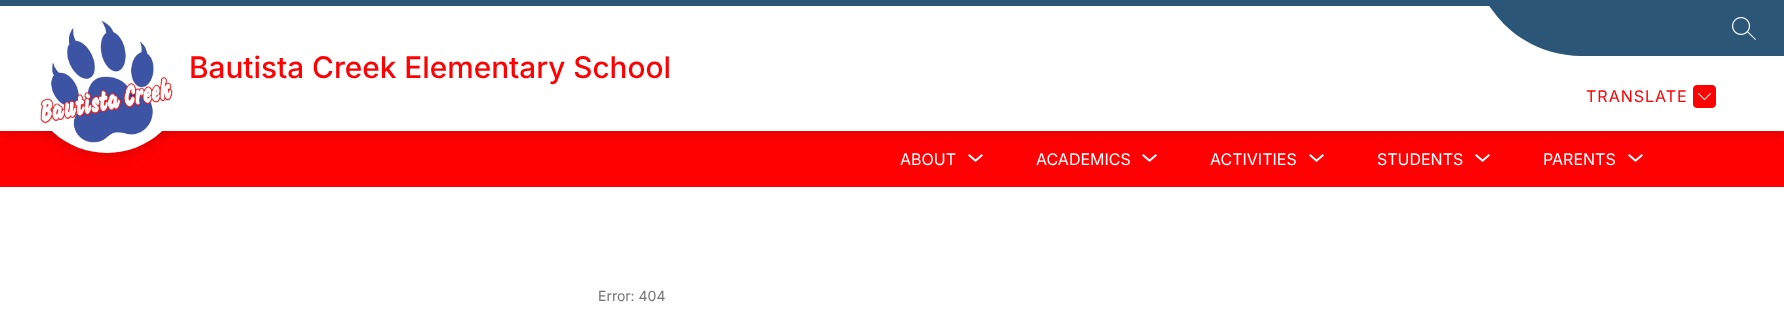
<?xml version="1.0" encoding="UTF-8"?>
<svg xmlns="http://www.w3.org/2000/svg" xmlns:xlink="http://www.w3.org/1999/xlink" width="1784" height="312">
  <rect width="100%" height="100%" fill="#ffffff" />
  <rect y="131" width="1784" height="56" fill="#fe0203" />
  <rect y="4" width="1784" height="131" fill="#000000" fill-opacity="0.1" filter="blur(5px)" />
  <rect x="30" y="13" width="153" height="144" rx="72" fill="#000000" fill-opacity="0.1" filter="blur(5px)" />
  <ellipse cx="107" cy="81" rx="76.5" ry="72" fill="#ffffff" />
  <rect y="6" width="1784" height="125" fill="#ffffff" />
  <rect width="1490" height="6" fill="#2b5678" />
  <image x="40" y="20" width="133" height="123" xlink:href="image1.png" />
  <rect x="1583" width="201" height="56" fill="#2b5678" />
  <path d="M 1581 56 h 2 v -56 h -96 c -1 0 -1 1 -1 2 l 7 9 c 20 28 53 45 88 45 z" fill="#2b5678" />
  <image x="1732" y="17" width="24" height="23" xlink:href="image2.png" />
  <image x="1693" y="85" width="23" height="23" xlink:href="image3.png" />
  <image x="968" y="154" width="15" height="8" xlink:href="image4.png" />
  <image x="1142" y="154" width="15" height="8" xlink:href="image4.png" />
  <image x="1309" y="154" width="15" height="8" xlink:href="image4.png" />
  <image x="1475" y="154" width="15" height="8" xlink:href="image4.png" />
  <image x="1628" y="154" width="15" height="8" xlink:href="image4.png" />
  <text x="189" y="78" style="font-family: Inter; font-size: 29.75px; font-weight: 500; fill: #fe0203">Bautista Creek Elementary School</text>
  <text x="1586" y="102" style="font-family: Inter; font-size: 16px; letter-spacing: 1px; fill: #fe0203">TRANSLATE</text>
  <text x="900" y="165" style="font-family: Inter; font-size: 16px; fill: #ffffff">ABOUT</text>
  <text x="1036" y="165" style="font-family: Inter; font-size: 16px; fill: #ffffff">ACADEMICS</text>
  <text x="1210" y="165" style="font-family: Inter; font-size: 16px; fill: #ffffff">ACTIVITIES</text>
  <text x="1377" y="165" style="font-family: Inter; font-size: 16px; fill: #ffffff">STUDENTS</text>
  <text x="1543" y="165" style="font-family: Inter; font-size: 16px; fill: #ffffff">PARENTS</text>
  <text x="598" y="301" style="font-family: Inter; font-size: 14px; fill: #747474">Error: 404</text>
</svg>
